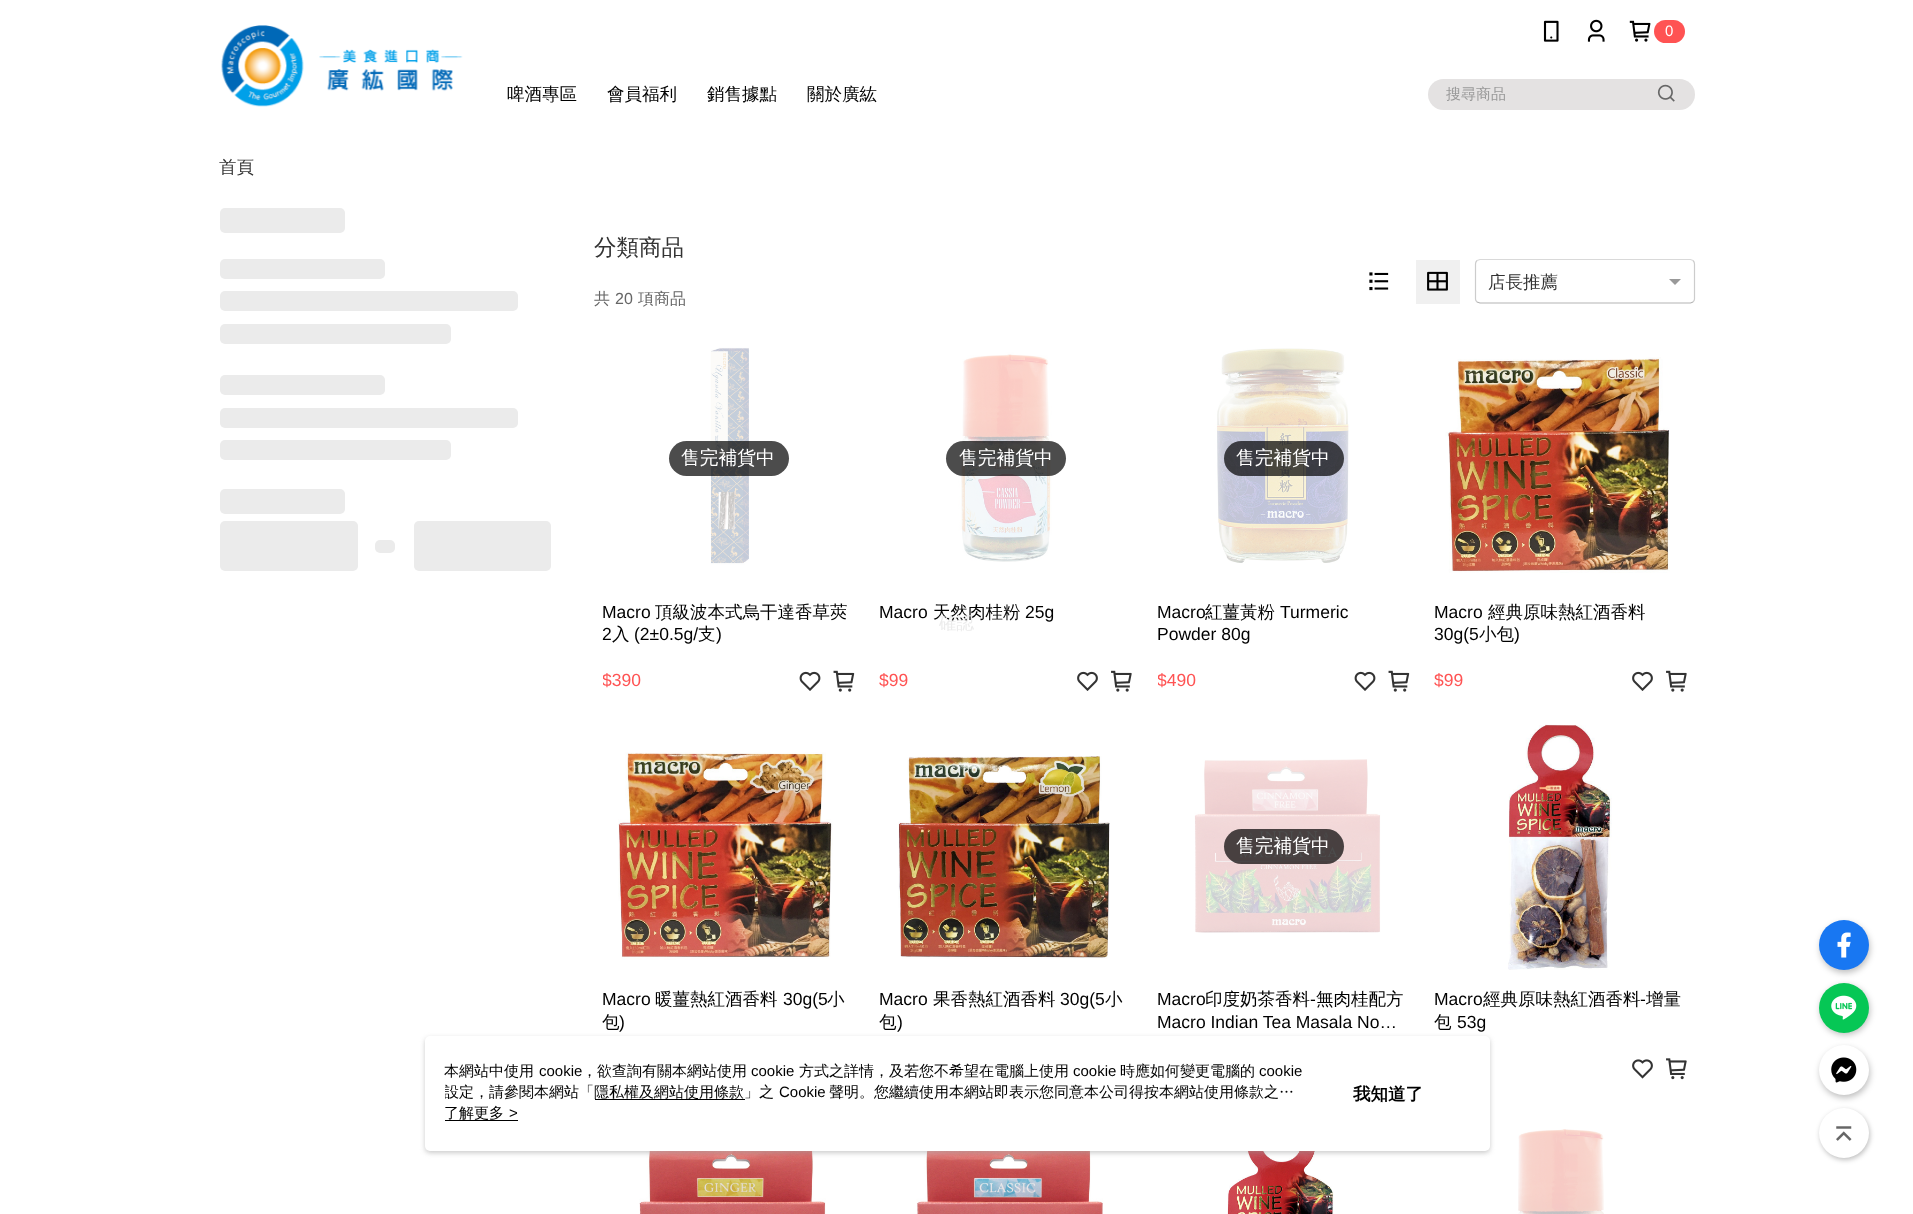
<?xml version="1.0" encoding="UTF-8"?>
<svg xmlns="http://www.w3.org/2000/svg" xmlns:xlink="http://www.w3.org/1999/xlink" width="1913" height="1214">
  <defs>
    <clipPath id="clip1"><rect x="603" y="665" width="190" height="30" /></clipPath>
    <clipPath id="clip2"><rect x="1158" y="665" width="190" height="30" /></clipPath>
    <clipPath id="clip3"><rect x="445" y="1061" width="863" height="43" /></clipPath>
  </defs>
  <rect width="100%" height="100%" fill="#ffffff" />
  <image x="221" y="25" width="242" height="82" xlink:href="image1.png" />
  <image x="1543" y="20" width="16" height="22" xlink:href="image2.png" />
  <image x="1587" y="19" width="18" height="23" xlink:href="image3.png" />
  <image x="1629" y="20" width="22" height="22" xlink:href="image4.png" />
  <rect x="1654" y="20" width="31" height="23" rx="11.5" fill="#ff5353" />
  <rect x="1428" y="79" width="267" height="31" rx="15.5" fill="#e4e2e2" />
  <image x="1657" y="84" width="18" height="18" xlink:href="image5.png" />
  <rect x="1820" y="923" width="50" height="50" rx="25" fill="#000000" fill-opacity="0.25" filter="blur(3px)" />
  <circle cx="1844" cy="945" r="25" fill="#1877f2" />
  <image x="1837" y="932" width="14" height="26" xlink:href="image6.png" />
  <rect x="1820" y="985" width="50" height="50" rx="25" fill="#000000" fill-opacity="0.25" filter="blur(3px)" />
  <circle cx="1844" cy="1008" r="25" fill="#06c755" />
  <image x="1831" y="995" width="26" height="25" xlink:href="image7.png" />
  <rect x="1820" y="1048" width="50" height="50" rx="25" fill="#000000" fill-opacity="0.25" filter="blur(3px)" />
  <circle cx="1844" cy="1070" r="25" fill="#ffffff" />
  <image x="1831" y="1057" width="26" height="26" xlink:href="image8.png" />
  <rect x="1820" y="1110" width="50" height="50" rx="25" fill="#000000" fill-opacity="0.25" filter="blur(2.5px)" />
  <circle cx="1844" cy="1133" r="25" fill="#ffffff" />
  <image x="1836" y="1126" width="16" height="15" xlink:href="image9.png" />
  <rect x="220" y="208" width="125" height="25" rx="5" fill="#ebebeb" />
  <rect x="220" y="259" width="165" height="20" rx="5" fill="#ebebeb" />
  <rect x="220" y="291" width="298" height="20" rx="5" fill="#ebebeb" />
  <rect x="220" y="324" width="231" height="20" rx="5" fill="#ebebeb" />
  <rect x="220" y="375" width="165" height="20" rx="5" fill="#ebebeb" />
  <rect x="220" y="408" width="298" height="20" rx="5" fill="#ebebeb" />
  <rect x="220" y="440" width="231" height="20" rx="5" fill="#ebebeb" />
  <rect x="220" y="489" width="125" height="25" rx="5" fill="#ebebeb" />
  <rect x="220" y="521" width="138" height="50" rx="5" fill="#ebebeb" />
  <rect x="375" y="540" width="20" height="13" rx="5" fill="#ebebeb" />
  <rect x="414" y="521" width="137" height="50" rx="5" fill="#ebebeb" />
  <image x="1369" y="272" width="20" height="19" xlink:href="image10.png" />
  <rect x="1416" y="260" width="44" height="44" fill="#f0f0f0" />
  <image x="1427" y="271" width="21" height="20" xlink:href="image11.png" />
  <path d="M 1477 260.5 l 3 -1 h 210.5 l 2.5 1" fill="none" stroke="#d9d9d9" stroke-width="1.2" />
  <path d="M 1693 260.5 c 1 1 1.5 2 1.5 3.5 v 35 c 0 1 -0.5 2 -1.5 3" fill="none" stroke="#cccccc" stroke-width="1.2" />
  <path d="M 1693 302 l -2.5 1 h -175.5 h -35 l -3 -1" fill="none" stroke="#b3b3b3" stroke-width="1.2" />
  <path d="M 1477 302 c -1 -1 -1.5 -2 -1.5 -3 v -35 c 0 -1.5 0.5 -2.5 1.5 -3.5" fill="none" stroke="#cccccc" stroke-width="1.2" />
  <path d="M 1669 279 h 12 l -6 6 z" fill="#999999" />
  <image x="710" y="347" width="39" height="218" xlink:href="image12.png" />
  <rect x="669" y="441" width="120" height="35" rx="17.5" fill="#000000" fill-opacity="0.7" />
  <image x="799" y="671" width="22" height="20" xlink:href="image13.png" />
  <image x="833" y="670" width="22" height="22" xlink:href="image14.png" />
  <image x="958" y="352" width="94" height="210" xlink:href="image15.png" />
  <rect x="946" y="441" width="120" height="35" rx="17.5" fill="#000000" fill-opacity="0.7" />
  <image x="1077" y="671" width="21" height="20" xlink:href="image16.png" />
  <image x="1111" y="670" width="21" height="22" xlink:href="image17.png" />
  <image x="1214" y="348" width="136" height="215" xlink:href="image18.png" />
  <rect x="1224" y="441" width="120" height="35" rx="17.5" fill="#000000" fill-opacity="0.7" />
  <image x="1354" y="671" width="22" height="20" xlink:href="image13.png" />
  <image x="1388" y="670" width="22" height="22" xlink:href="image14.png" />
  <image x="1445" y="357" width="225" height="216" xlink:href="image19.png" />
  <image x="1632" y="671" width="21" height="20" xlink:href="image16.png" />
  <image x="1666" y="670" width="21" height="22" xlink:href="image17.png" />
  <image x="618" y="752" width="215" height="208" xlink:href="image20.png" />
  <image x="898" y="756" width="212" height="203" xlink:href="image21.png" />
  <image x="1194" y="759" width="187" height="174" xlink:href="image22.png" />
  <rect x="1224" y="829" width="120" height="35" rx="17.5" fill="#000000" fill-opacity="0.7" />
  <image x="1508" y="724" width="104" height="246" xlink:href="image23.png" />
  <image x="1632" y="1059" width="21" height="20" xlink:href="image24.png" />
  <image x="1666" y="1058" width="21" height="22" xlink:href="image25.png" />
  <image x="639" y="1151" width="187" height="63" xlink:href="image26.png" />
  <image x="916" y="1151" width="187" height="63" xlink:href="image27.png" />
  <image x="1227" y="1151" width="107" height="63" xlink:href="image28.png" />
  <image x="1518" y="1129" width="86" height="85" xlink:href="image29.png" />
  <rect x="425" y="1038" width="1065" height="115" rx="5" fill="#979797" fill-opacity="0.5" filter="blur(2.5px)" />
  <rect x="425" y="1036" width="1065" height="115" rx="5" fill="#ffffff" />
  <rect x="595" y="1099" width="150" height="1" fill="#000000" />
  <rect x="445" y="1120" width="73" height="1" fill="#000000" />
  <text x="1665" y="36" style="font-family: Liberation Sans; font-size: 15px; fill: #ffffff">0</text>
  <text x="507" y="100" style="font-family: WenQuanYi Zen Hei; font-size: 17.5px; font-weight: 500; fill: #000000">啤酒專區</text>
  <text x="607" y="100" style="font-family: WenQuanYi Zen Hei; font-size: 17.5px; font-weight: 500; fill: #000000">會員福利</text>
  <text x="707" y="100" style="font-family: WenQuanYi Zen Hei; font-size: 17.5px; font-weight: 500; fill: #000000">銷售據點</text>
  <text x="807" y="100" style="font-family: WenQuanYi Zen Hei; font-size: 17.5px; font-weight: 500; fill: #000000">關於廣紘</text>
  <text x="1446" y="99" style="font-family: WenQuanYi Zen Hei; font-size: 15px; font-weight: 500; fill: #999999">搜尋商品</text>
  <text x="219" y="173" style="font-family: WenQuanYi Zen Hei; font-size: 17.5px; font-weight: 500; fill: #333333">首頁</text>
  <text x="594" y="255" style="font-family: WenQuanYi Zen Hei; font-size: 22.5px; font-weight: 500; fill: #333333">分類商品</text>
  <text x="1488" y="288" style="font-family: WenQuanYi Zen Hei; font-size: 17.5px; font-weight: 500; fill: #333333">店長推薦</text>
  <text x="594" y="304" style="font-family: WenQuanYi Zen Hei; font-size: 16px; font-weight: 500; fill: #666666">共</text>
  <text x="615" y="304" style="font-family: Liberation Sans; font-size: 16px; fill: #666666">20</text>
  <text x="638" y="304" style="font-family: WenQuanYi Zen Hei; font-size: 16px; font-weight: 500; fill: #666666">項商品</text>
  <text x="681" y="464" style="font-family: WenQuanYi Zen Hei; font-size: 18.75px; font-weight: 500; fill: #ffffff">售完補貨中</text>
  <text x="602" y="618" style="font-family: Liberation Sans; font-size: 17.5px; fill: #000000">Macro</text>
  <text x="655" y="618" style="font-family: WenQuanYi Zen Hei; font-size: 17.5px; font-weight: 500; fill: #000000">頂級波本式烏干達香草莢</text>
  <text x="602" y="640" style="font-family: Liberation Sans; font-size: 17.5px; fill: #000000">2</text>
  <text x="612" y="640" style="font-family: WenQuanYi Zen Hei; font-size: 17.5px; font-weight: 500; fill: #000000">入</text>
  <text x="634" y="640" style="font-family: Liberation Sans; font-size: 17.5px; fill: #000000">(2±0.5g/</text>
  <text x="698" y="640" style="font-family: WenQuanYi Zen Hei; font-size: 17.5px; font-weight: 500; fill: #000000">支</text>
  <text x="716" y="640" style="font-family: Liberation Sans; font-size: 17.5px; fill: #000000">)</text>
  <g clip-path="url(#clip1)">
    <text x="602" y="686" style="font-family: Liberation Sans; font-size: 17.5px; fill: #ff5353">$390</text>
  </g>
  <text x="959" y="464" style="font-family: WenQuanYi Zen Hei; font-size: 18.75px; font-weight: 500; fill: #ffffff">售完補貨中</text>
  <text x="879" y="618" style="font-family: Liberation Sans; font-size: 17.5px; fill: #000000">Macro</text>
  <text x="933" y="618" style="font-family: WenQuanYi Zen Hei; font-size: 17.5px; font-weight: 500; fill: #000000">天然肉桂粉</text>
  <text x="1025" y="618" style="font-family: Liberation Sans; font-size: 17.5px; fill: #000000">25g</text>
  <text x="879" y="686" style="font-family: Liberation Sans; font-size: 17.5px; fill: #ff5353">$99</text>
  <text x="1236" y="464" style="font-family: WenQuanYi Zen Hei; font-size: 18.75px; font-weight: 500; fill: #ffffff">售完補貨中</text>
  <text x="1157" y="618" style="font-family: Liberation Sans; font-size: 17.5px; fill: #000000">Macro</text>
  <text x="1205" y="618" style="font-family: WenQuanYi Zen Hei; font-size: 17.5px; font-weight: 500; fill: #000000">紅薑黃粉</text>
  <text x="1280" y="618" style="font-family: Liberation Sans; font-size: 17.5px; fill: #000000">Turmeric</text>
  <text x="1157" y="640" style="font-family: Liberation Sans; font-size: 17.5px; fill: #000000">Powder 80g</text>
  <g clip-path="url(#clip2)">
    <text x="1157" y="686" style="font-family: Liberation Sans; font-size: 17.5px; fill: #ff5353">$490</text>
  </g>
  <text x="1434" y="618" style="font-family: Liberation Sans; font-size: 17.5px; fill: #000000">Macro</text>
  <text x="1488" y="618" style="font-family: WenQuanYi Zen Hei; font-size: 17.5px; font-weight: 500; fill: #000000">經典原味熱紅酒香料</text>
  <text x="1434" y="640" style="font-family: Liberation Sans; font-size: 17.5px; fill: #000000">30g(5</text>
  <text x="1479" y="640" style="font-family: WenQuanYi Zen Hei; font-size: 17.5px; font-weight: 500; fill: #000000">小包</text>
  <text x="1514" y="640" style="font-family: Liberation Sans; font-size: 17.5px; fill: #000000">)</text>
  <text x="1434" y="686" style="font-family: Liberation Sans; font-size: 17.5px; fill: #ff5353">$99</text>
  <text x="602" y="1005" style="font-family: Liberation Sans; font-size: 17.5px; fill: #000000">Macro</text>
  <text x="655" y="1005" style="font-family: WenQuanYi Zen Hei; font-size: 17.5px; font-weight: 500; fill: #000000">暖薑熱紅酒香料</text>
  <text x="783" y="1005" style="font-family: Liberation Sans; font-size: 17.5px; fill: #000000">30g(5</text>
  <text x="827" y="1005" style="font-family: WenQuanYi Zen Hei; font-size: 17.5px; font-weight: 500; fill: #000000">小</text>
  <text x="602" y="1028" style="font-family: WenQuanYi Zen Hei; font-size: 17.5px; font-weight: 500; fill: #000000">包</text>
  <text x="619" y="1028" style="font-family: Liberation Sans; font-size: 17.5px; fill: #000000">)</text>
  <text x="879" y="1005" style="font-family: Liberation Sans; font-size: 17.5px; fill: #000000">Macro</text>
  <text x="933" y="1005" style="font-family: WenQuanYi Zen Hei; font-size: 17.5px; font-weight: 500; fill: #000000">果香熱紅酒香料</text>
  <text x="1060" y="1005" style="font-family: Liberation Sans; font-size: 17.5px; fill: #000000">30g(5</text>
  <text x="1105" y="1005" style="font-family: WenQuanYi Zen Hei; font-size: 17.5px; font-weight: 500; fill: #000000">小</text>
  <text x="879" y="1028" style="font-family: WenQuanYi Zen Hei; font-size: 17.5px; font-weight: 500; fill: #000000">包</text>
  <text x="897" y="1028" style="font-family: Liberation Sans; font-size: 17.5px; fill: #000000">)</text>
  <text x="1236" y="852" style="font-family: WenQuanYi Zen Hei; font-size: 18.75px; font-weight: 500; fill: #ffffff">售完補貨中</text>
  <text x="1157" y="1005" style="font-family: Liberation Sans; font-size: 17.5px; fill: #000000">Macro</text>
  <text x="1205" y="1005" style="font-family: WenQuanYi Zen Hei; font-size: 17.5px; font-weight: 500; fill: #000000">印度奶茶香料</text>
  <text x="1310" y="1005" style="font-family: Liberation Sans; font-size: 17.5px; fill: #000000">-</text>
  <text x="1316" y="1005" style="font-family: WenQuanYi Zen Hei; font-size: 17.5px; font-weight: 500; fill: #000000">無肉桂配方</text>
  <text x="1157" y="1028" style="font-family: Liberation Sans; font-size: 17.5px; fill: #000000">Macro Indian Tea Masala No…</text>
  <text x="1434" y="1005" style="font-family: Liberation Sans; font-size: 17.5px; fill: #000000">Macro</text>
  <text x="1483" y="1005" style="font-family: WenQuanYi Zen Hei; font-size: 17.5px; font-weight: 500; fill: #000000">經典原味熱紅酒香料</text>
  <text x="1640" y="1005" style="font-family: Liberation Sans; font-size: 17.5px; fill: #000000">-</text>
  <text x="1646" y="1005" style="font-family: WenQuanYi Zen Hei; font-size: 17.5px; font-weight: 500; fill: #000000">增量</text>
  <text x="1434" y="1028" style="font-family: WenQuanYi Zen Hei; font-size: 17.5px; font-weight: 500; fill: #000000">包</text>
  <text x="1457" y="1028" style="font-family: Liberation Sans; font-size: 17.5px; fill: #000000">53g</text>
  <text x="939" y="629" style="font-family: WenQuanYi Zen Hei; font-size: 17.5px; font-weight: 500; fill: #ececec">確認</text>
  <text x="444" y="1076" style="font-family: WenQuanYi Zen Hei; font-size: 15px; font-weight: 500; fill: #000000">本網站中使用</text>
  <text x="539" y="1076" style="font-family: Liberation Sans; font-size: 15px; fill: #000000">cookie</text>
  <text x="582" y="1076" style="font-family: WenQuanYi Zen Hei; font-size: 15px; font-weight: 500; fill: #000000">，欲查詢有關本網站使用</text>
  <text x="751" y="1076" style="font-family: Liberation Sans; font-size: 15px; fill: #000000">cookie</text>
  <text x="799" y="1076" style="font-family: WenQuanYi Zen Hei; font-size: 15px; font-weight: 500; fill: #000000">方式之詳情，及若您不希望在電腦上使用</text>
  <text x="1073" y="1076" style="font-family: Liberation Sans; font-size: 15px; fill: #000000">cookie</text>
  <text x="1120" y="1076" style="font-family: WenQuanYi Zen Hei; font-size: 15px; font-weight: 500; fill: #000000">時應如何變更電腦的</text>
  <text x="1259" y="1076" style="font-family: Liberation Sans; font-size: 15px; fill: #000000">cookie</text>
  <g clip-path="url(#clip3)">
    <text x="444" y="1097" style="font-family: WenQuanYi Zen Hei; font-size: 15px; font-weight: 500; fill: #000000">設定，請參閱本網站「</text>
  </g>
  <text x="594" y="1097" style="font-family: WenQuanYi Zen Hei; font-size: 15px; font-weight: 500; fill: #000000">隱私權及網站使用條款」之</text>
  <text x="779" y="1097" style="font-family: Liberation Sans; font-size: 15px; fill: #000000">Cookie</text>
  <text x="829" y="1097" style="font-family: WenQuanYi Zen Hei; font-size: 15px; font-weight: 500; fill: #000000">聲明。您繼續使用本網站即表示您同意本公司得按本網站使用條款之…</text>
  <text x="444" y="1118" style="font-family: WenQuanYi Zen Hei; font-size: 15px; font-weight: 500; fill: #000000">了解更多</text>
  <text x="509" y="1118" style="font-family: Liberation Sans; font-size: 15px; fill: #000000">&gt;</text>
  <text x="1353" y="1100" style="font-family: WenQuanYi Zen Hei; font-size: 17.5px; font-weight: bold; fill: #000000">我知道了</text>
</svg>
